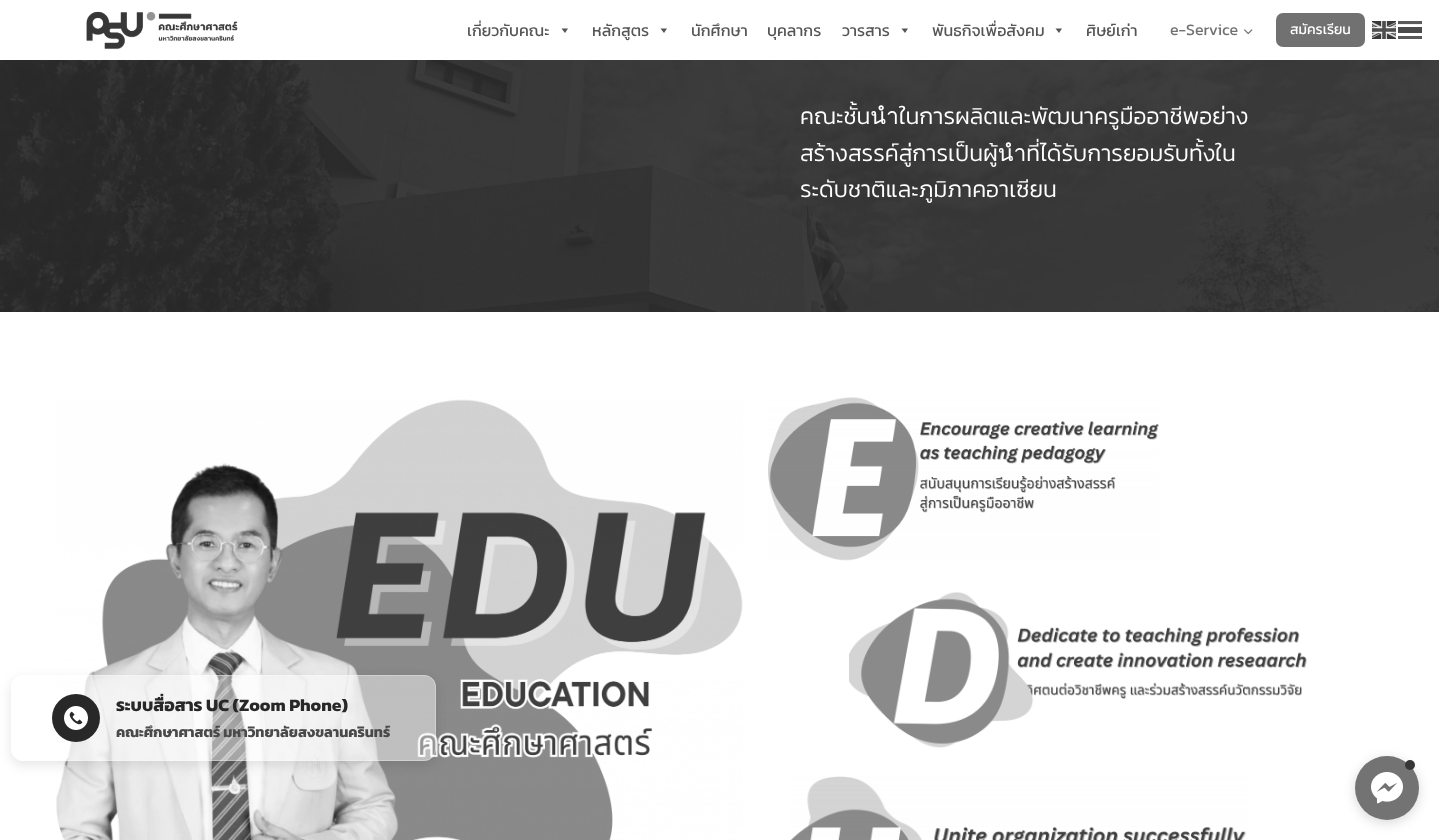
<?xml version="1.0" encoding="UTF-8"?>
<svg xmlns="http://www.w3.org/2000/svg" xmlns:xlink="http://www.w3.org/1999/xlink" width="1439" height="840">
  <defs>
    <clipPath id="clip1"><path d="M 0 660 h 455 v 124 h -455 z m 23 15 h 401 c 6.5 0 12 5.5 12 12 v 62 c 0 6.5 -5.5 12 -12 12 h -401 c -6.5 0 -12 -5.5 -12 -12 v -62 c 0 -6.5 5.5 -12 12 -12 z" clip-rule="evenodd" /></clipPath>
  </defs>
  <rect width="100%" height="100%" fill="#ffffff" />
  <image x="86" y="11" width="152" height="39" xlink:href="image1.png" />
  <path d="M 568 28.5 l -3 4.5 l -3.5 -4.5 z" fill="#555555" />
  <path d="M 667 28.5 l -3 4.5 l -3.5 -4.5 z" fill="#555555" />
  <path d="M 908 28.5 l -3 4.5 l -3.5 -4.5 z" fill="#555555" />
  <path d="M 1062 28.5 l -3 4.5 l -3.5 -4.5 z" fill="#555555" />
  <image x="1244" y="29" width="9" height="6" xlink:href="image2.png" />
  <rect x="1276" y="13" width="89" height="34" rx="7" fill="#717171" />
  <image x="0" y="60" width="1439" height="252" xlink:href="image3.png" />
  <image x="56" y="399" width="687" height="441" xlink:href="image4.png" />
  <image x="768" y="397" width="391" height="164" xlink:href="image5.png" />
  <image x="849" y="592" width="458" height="156" xlink:href="image6.png" />
  <image x="790" y="776" width="457" height="64" xlink:href="image7.png" />
  <image x="1372" y="21" width="24" height="18" xlink:href="image8.png" />
  <image x="1398" y="21" width="24" height="18" xlink:href="image9.png" />
  <g clip-path="url(#clip1)">
    <rect x="11" y="679" width="425" height="86" rx="12" fill="#000000" fill-opacity="0.1" filter="blur(6px)" />
  </g>
  <rect x="11" y="675" width="425" height="86" rx="12" fill="#ffffff" fill-opacity="0.45" />
  <rect x="11.5" y="675.5" width="424" height="85" rx="11.5" fill="none" stroke="#ffffff" stroke-opacity="0.3" />
  <circle cx="76" cy="718" r="24" fill="#282828" />
  <image x="64" y="706" width="24" height="24" xlink:href="image10.png" />
  <rect x="1355" y="759" width="64" height="64" rx="32" fill="#000000" fill-opacity="0.15" filter="blur(6px)" />
  <circle cx="1387" cy="788" r="32" fill="#737373" />
  <circle cx="1410" cy="765" r="5" fill="#363636" />
  <image x="1371" y="772" width="32" height="32" xlink:href="image11.png" />
  <text x="467" y="36" style="font-family: Kanit; font-size: 16px; fill: #555555">เกี่ยวกับคณะ</text>
  <text x="592" y="36" style="font-family: Kanit; font-size: 16px; fill: #555555">หลักสูตร</text>
  <text x="691" y="36" style="font-family: Kanit; font-size: 16px; fill: #555555">นักศึกษา</text>
  <text x="767" y="36" style="font-family: Kanit; font-size: 16px; fill: #555555">บุคลากร</text>
  <text x="842" y="36" style="font-family: Kanit; font-size: 16px; fill: #555555">วารสาร</text>
  <text x="932" y="36" style="font-family: Kanit; font-size: 16px; fill: #555555">พันธกิจเพื่อสังคม</text>
  <text x="1086" y="36" style="font-family: Kanit; font-size: 16px; fill: #555555">ศิษย์เก่า</text>
  <text x="1170" y="35" style="font-family: Kanit; font-size: 16px; fill: #717171">e-Service</text>
  <text x="1290" y="34" style="font-family: Kanit; font-size: 14px; fill: #ffffff">สมัครเรียน</text>
  <text x="800" y="124" style="font-family: Kanit; font-size: 23px; font-weight: 300; fill: #ffffff">คณะชั้นนำในการผลิตและพัฒนาครูมืออาชีพอย่าง</text>
  <text x="800" y="161" style="font-family: Kanit; font-size: 23px; font-weight: 300; fill: #ffffff">สร้างสรรค์สู่การเป็นผู้นำที่ได้รับการยอมรับทั้งใน</text>
  <text x="800" y="197" style="font-family: Kanit; font-size: 23px; font-weight: 300; fill: #ffffff">ระดับชาติและภูมิภาคอาเซียน</text>
  <text x="116" y="711" style="font-family: Kanit; font-size: 17.6px; font-weight: bold; fill: #282828">ระบบสื่อสาร UC (Zoom Phone)</text>
  <text x="116" y="737" style="font-family: Kanit; font-size: 14.4px; font-weight: bold; fill: #4a4a4a">คณะศึกษาศาสตร์ มหาวิทยาลัยสงขลานครินทร์</text>
</svg>
